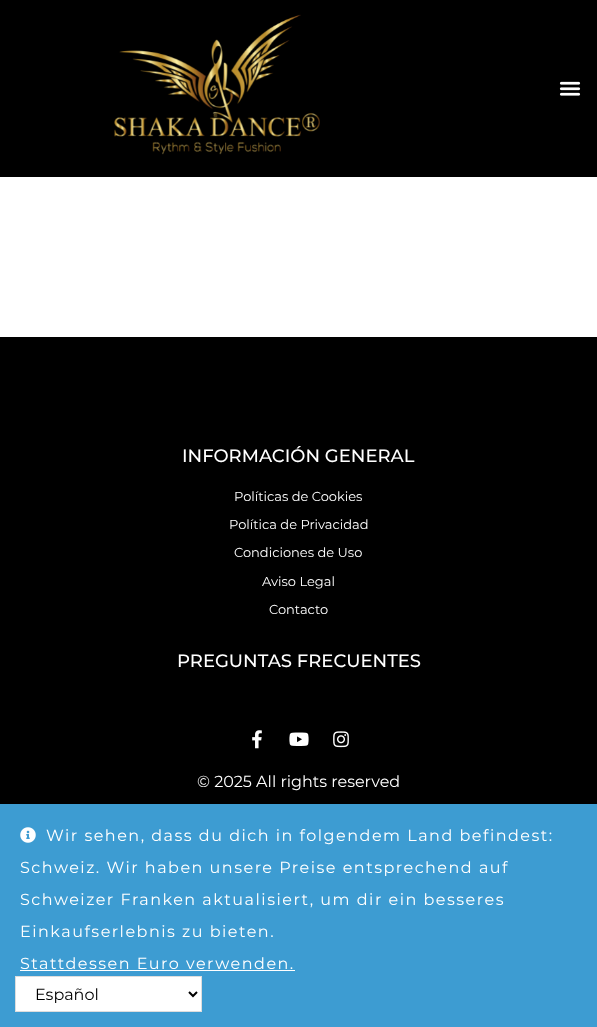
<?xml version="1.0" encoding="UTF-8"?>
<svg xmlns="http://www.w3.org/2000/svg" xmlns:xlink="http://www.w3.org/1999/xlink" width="597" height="1027">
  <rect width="100%" height="100%" fill="#ffffff" />
  <rect width="597" height="177" fill="#000000" />
  <image x="114" y="14" width="206" height="141" xlink:href="image1.png" />
  <image x="559" y="81" width="22" height="15" xlink:href="image2.png" />
  <rect y="337" width="597" height="467" fill="#000000" />
  <image x="252" y="730" width="10" height="19" xlink:href="image3.png" />
  <image x="289" y="732" width="20" height="14" xlink:href="image4.png" />
  <image x="333" y="731" width="16" height="17" xlink:href="image5.png" />
  <rect y="804" width="597" height="223" fill="#3d9cd2" />
  <image x="20" y="827" width="16" height="16" xlink:href="image6.png" />
  <rect x="20" y="970" width="275" height="1" fill="#ffffff" />
  <rect x="15.5" y="976.5" width="186" height="35" fill="#ffffff" stroke="#dddddd" />
  <path d="M 189 992 l 4 4 l 4 -4" fill="none" stroke="#000000" stroke-width="2" />
  <text x="182" y="462" style="font-family: Montserrat; font-size: 18px; font-weight: 500; fill: #ffffff">INFORMACIÓN GENERAL</text>
  <text x="234" y="501" style="font-family: Montserrat; font-size: 13px; fill: #ffffff">Políticas de Cookies</text>
  <text x="229" y="529" style="font-family: Montserrat; font-size: 13px; fill: #ffffff">Política de Privacidad</text>
  <text x="234" y="557" style="font-family: Montserrat; font-size: 13px; fill: #ffffff">Condiciones de Uso</text>
  <text x="262" y="586" style="font-family: Montserrat; font-size: 13px; fill: #ffffff">Aviso Legal</text>
  <text x="269" y="614" style="font-family: Montserrat; font-size: 13px; fill: #ffffff">Contacto</text>
  <text x="177" y="667" style="font-family: Montserrat; font-size: 18px; font-weight: 500; fill: #ffffff">PREGUNTAS FRECUENTES</text>
  <text x="197" y="787" style="font-family: Montserrat; font-size: 16px; fill: #ffffff">© 2025 All rights reserved</text>
  <text x="46" y="841" style="font-family: Montserrat; font-size: 16px; letter-spacing: 1.5px; fill: #ffffff">Wir sehen, dass du dich in folgendem Land befindest:</text>
  <text x="20" y="873" style="font-family: Montserrat; font-size: 16px; letter-spacing: 1.5px; fill: #ffffff">Schweiz. Wir haben unsere Preise entsprechend auf</text>
  <text x="20" y="905" style="font-family: Montserrat; font-size: 16px; letter-spacing: 1.5px; fill: #ffffff">Schweizer Franken aktualisiert, um dir ein besseres</text>
  <text x="20" y="937" style="font-family: Montserrat; font-size: 16px; letter-spacing: 1.5px; fill: #ffffff">Einkaufserlebnis zu bieten.</text>
  <text x="20" y="969" style="font-family: Montserrat; font-size: 16px; letter-spacing: 1.5px; fill: #ffffff">Stattdessen Euro verwenden.</text>
  <text x="35" y="1000" style="font-family: Montserrat; font-size: 16px; fill: #000000">Español</text>
</svg>
